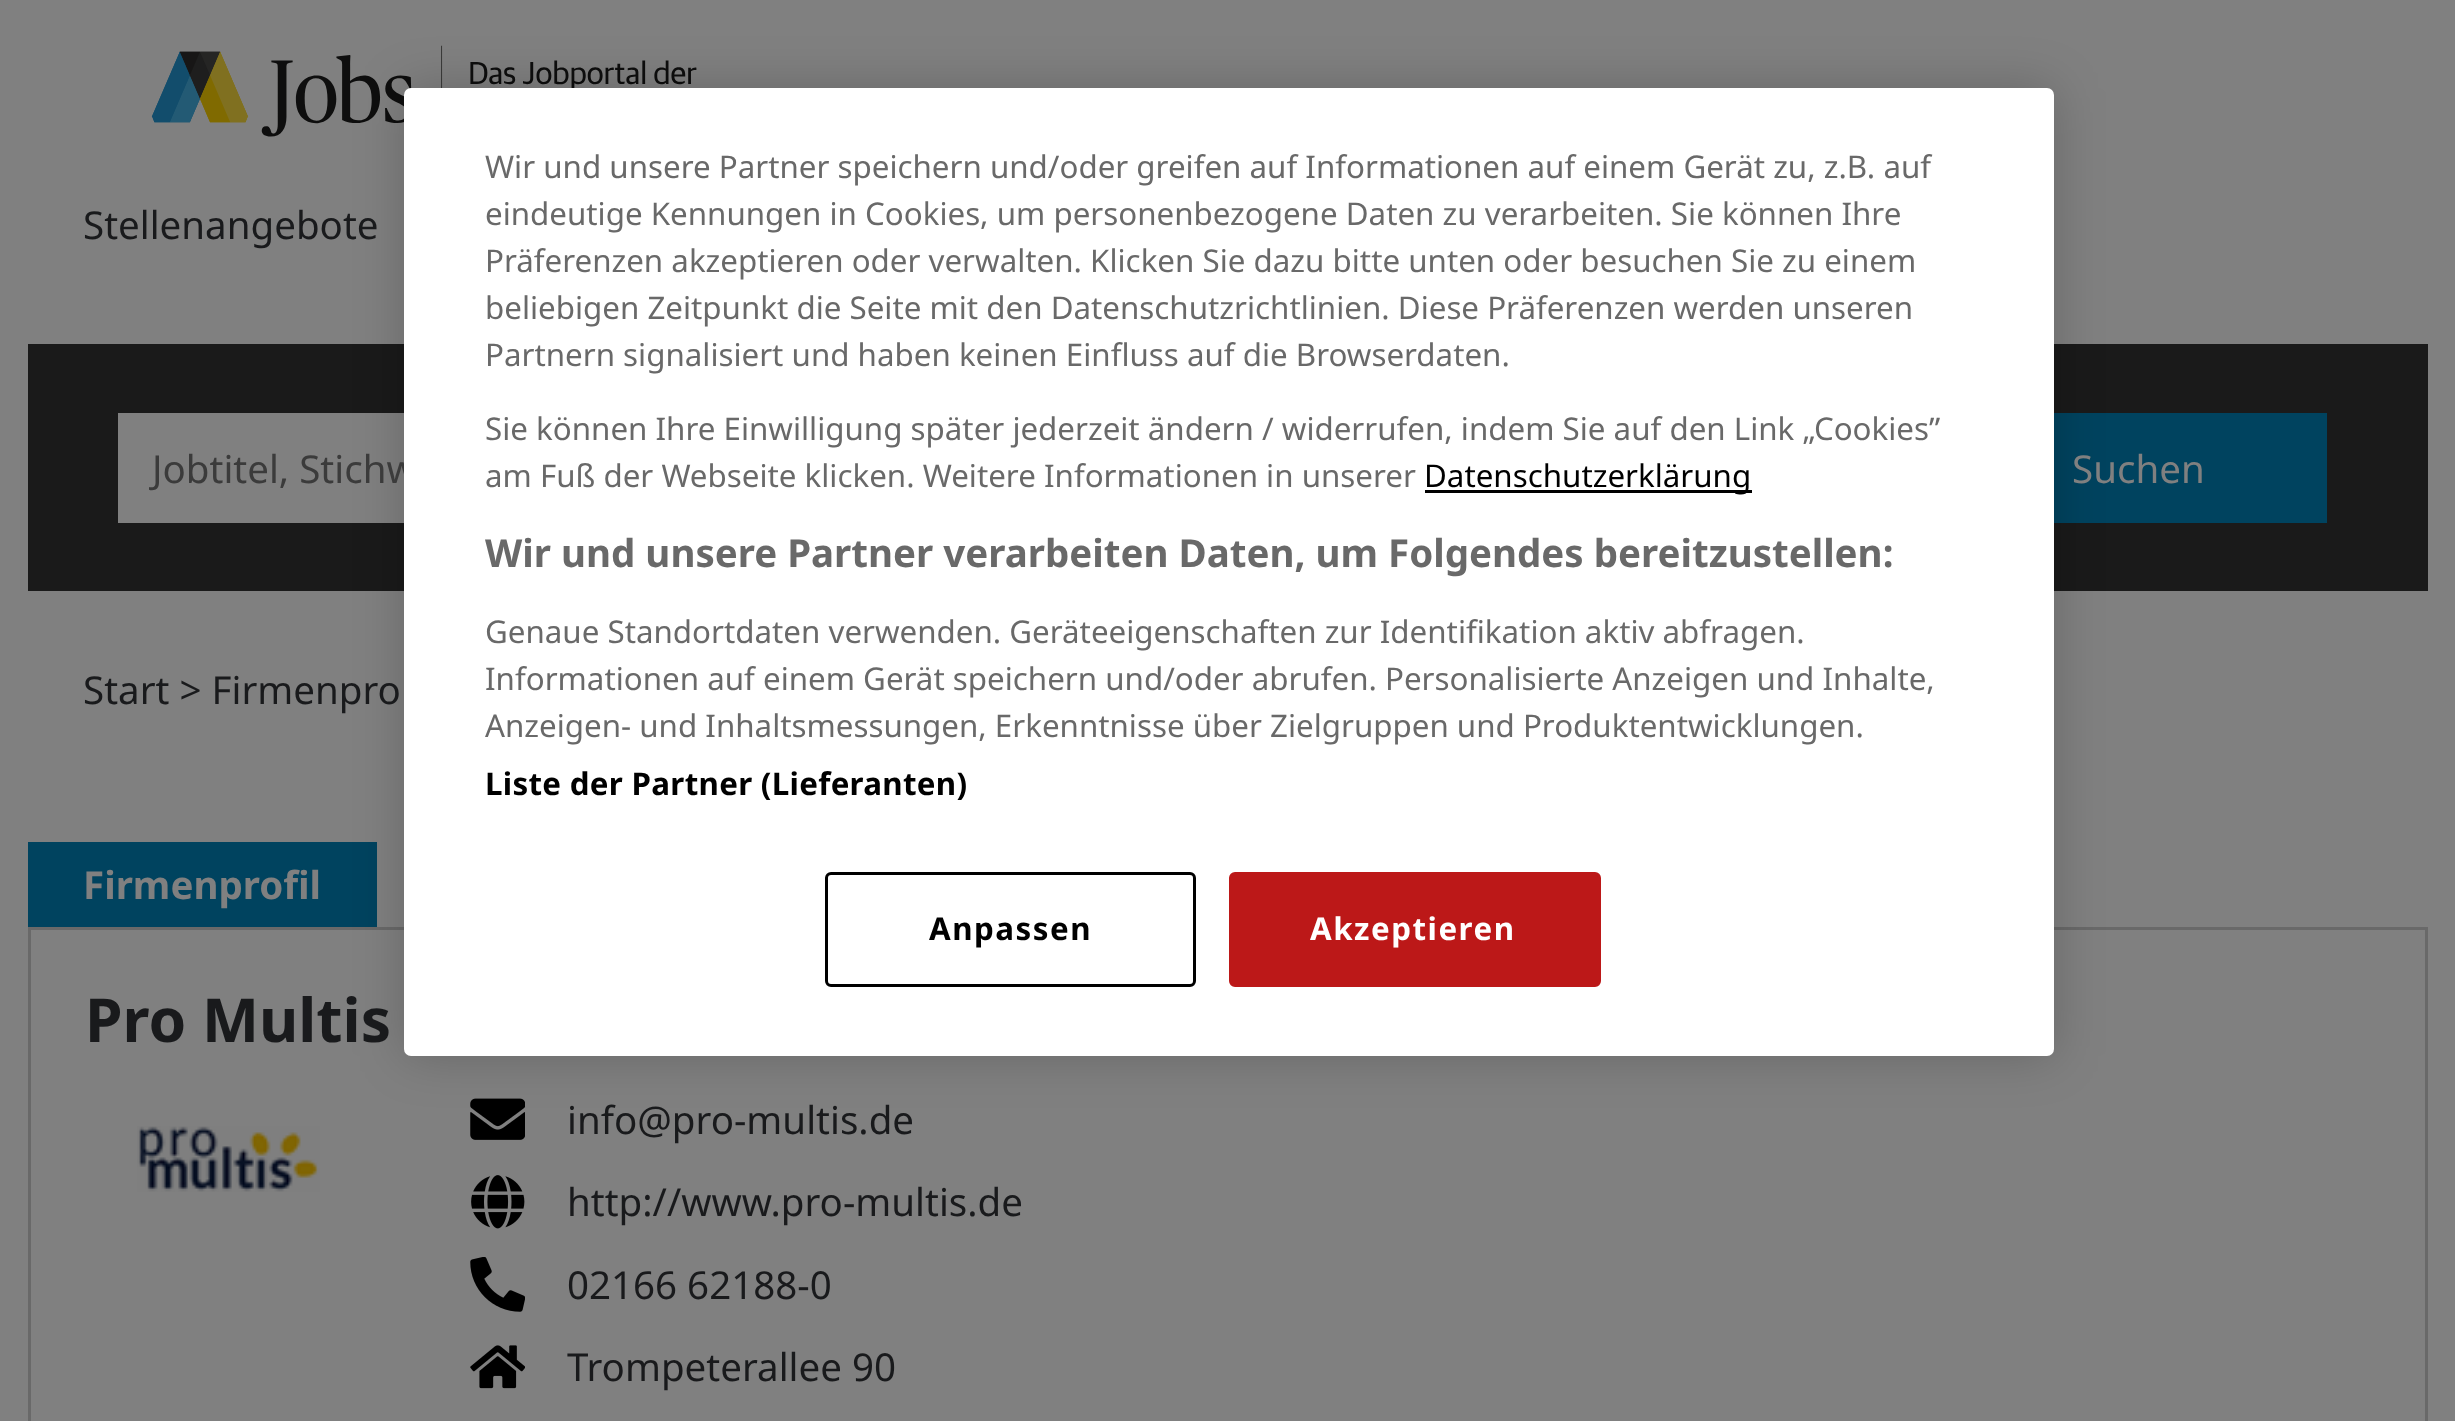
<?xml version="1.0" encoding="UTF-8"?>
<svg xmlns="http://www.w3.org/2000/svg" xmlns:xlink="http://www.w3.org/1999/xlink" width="2455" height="1421">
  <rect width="100%" height="100%" fill="#808080" />
  <image x="151" y="45" width="546" height="92" xlink:href="image1.png" />
  <rect x="28" y="344" width="2400" height="247" fill="#1a1a1a" />
  <rect x="118" y="413" width="286" height="110" fill="#808080" />
  <rect x="2054" y="413" width="273" height="110" fill="#00435f" />
  <rect x="28" y="842" width="349" height="85" fill="#00435f" />
  <rect x="29.5" y="928.5" width="2397" height="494" fill="none" stroke="#696969" stroke-width="3" />
  <image x="470" y="1098" width="55" height="42" xlink:href="image3.png" />
  <rect x="404" y="88" width="1650" height="968" rx="7" fill="#000000" fill-opacity="0.2" filter="blur(25px)" />
  <image x="137" y="1126" width="183" height="66" xlink:href="image2.png" />
  <image x="471" y="1175" width="54" height="54" xlink:href="image4.png" />
  <image x="470" y="1257" width="55" height="55" xlink:href="image5.png" />
  <image x="470" y="1345" width="55" height="44" xlink:href="image6.png" />
  <text x="83" y="239" style="font-family: Noto Sans; font-size: 38.5px; fill: #191a1c">Stellenangebote</text>
  <text x="152" y="483" style="font-family: Noto Sans; font-size: 38.5px; fill: #3b3b3b">Jobtitel, Stichw</text>
  <rect x="404" y="88" width="1650" height="968" rx="7" fill="#ffffff" />
  <rect x="826.5" y="873.5" width="368" height="112" rx="4.5" fill="none" stroke="#000000" stroke-width="3" />
  <text x="929" y="940" style="font-family: Noto Sans; font-size: 31.3px; font-weight: bold; letter-spacing: 1.5px; fill: #000000">Anpassen</text>
  <rect x="1230.5" y="873.5" width="369" height="112" rx="4.5" fill="#bc1818" stroke="#bc1818" stroke-width="3" />
  <text x="1310" y="940" style="font-family: Noto Sans; font-size: 31.3px; font-weight: bold; letter-spacing: 1.5px; fill: #ffffff">Akzeptieren</text>
  <text x="485" y="795" style="font-family: Noto Sans; font-size: 31.3px; font-weight: bold; letter-spacing: 0.3px; fill: #000000">Liste der Partner (Lieferanten)</text>
  <text x="485" y="737" style="font-family: Noto Sans; font-size: 31.3px; fill: #696969">Anzeigen- und Inhaltsmessungen, Erkenntnisse über Zielgruppen und Produktentwicklungen.</text>
  <text x="485" y="690" style="font-family: Noto Sans; font-size: 31.3px; fill: #696969">Informationen auf einem Gerät speichern und/oder abrufen. Personalisierte Anzeigen und Inhalte,</text>
  <text x="485" y="643" style="font-family: Noto Sans; font-size: 31.3px; fill: #696969">Genaue Standortdaten verwenden. Geräteeigenschaften zur Identifikation aktiv abfragen.</text>
  <text x="485" y="567" style="font-family: Noto Sans; font-size: 38.5px; font-weight: bold; fill: #696969">Wir und unsere Partner verarbeiten Daten, um Folgendes bereitzustellen:</text>
  <rect x="1425" y="490" width="327" height="3" fill="#000000" />
  <text x="1424" y="487" style="font-family: Noto Sans; font-size: 31.3px; fill: #000000">Datenschutzerklärung</text>
  <text x="485" y="487" style="font-family: Noto Sans; font-size: 31.3px; fill: #696969">am Fuß der Webseite klicken. Weitere Informationen in unserer</text>
  <text x="485" y="440" style="font-family: Noto Sans; font-size: 31.3px; fill: #696969">Sie können Ihre Einwilligung später jederzeit ändern / widerrufen, indem Sie auf den Link „Cookies”</text>
  <text x="485" y="366" style="font-family: Noto Sans; font-size: 31.3px; fill: #696969">Partnern signalisiert und haben keinen Einfluss auf die Browserdaten.</text>
  <text x="485" y="319" style="font-family: Noto Sans; font-size: 31.3px; fill: #696969">beliebigen Zeitpunkt die Seite mit den Datenschutzrichtlinien. Diese Präferenzen werden unseren</text>
  <text x="485" y="272" style="font-family: Noto Sans; font-size: 31.3px; fill: #696969">Präferenzen akzeptieren oder verwalten. Klicken Sie dazu bitte unten oder besuchen Sie zu einem</text>
  <text x="485" y="225" style="font-family: Noto Sans; font-size: 31.3px; fill: #696969">eindeutige Kennungen in Cookies, um personenbezogene Daten zu verarbeiten. Sie können Ihre</text>
  <text x="485" y="178" style="font-family: Noto Sans; font-size: 31.3px; fill: #696969">Wir und unsere Partner speichern und/oder greifen auf Informationen auf einem Gerät zu, z.B. auf</text>
  <text x="2072" y="483" style="font-family: Noto Sans; font-size: 38.5px; fill: #808080">Suchen</text>
  <text x="83" y="704" style="font-family: Noto Sans; font-size: 38.5px; fill: #191a1c">Start &gt; Firmenpro</text>
  <text x="83" y="899" style="font-family: Noto Sans; font-size: 38.5px; font-weight: bold; fill: #808080">Firmenprofil</text>
  <text x="85" y="1042" style="font-family: Noto Sans; font-size: 60.5px; font-weight: bold; fill: #191a1c">Pro Multis</text>
  <text x="567" y="1134" style="font-family: Noto Sans; font-size: 38.5px; fill: #191a1c">info@pro-multis.de</text>
  <text x="567" y="1216" style="font-family: Noto Sans; font-size: 38.5px; fill: #191a1c">http://www.pro-multis.de</text>
  <text x="567" y="1299" style="font-family: Noto Sans; font-size: 38.5px; fill: #191a1c">02166 62188-0</text>
  <text x="567" y="1381" style="font-family: Noto Sans; font-size: 38.5px; fill: #191a1c">Trompeterallee 90</text>
</svg>
